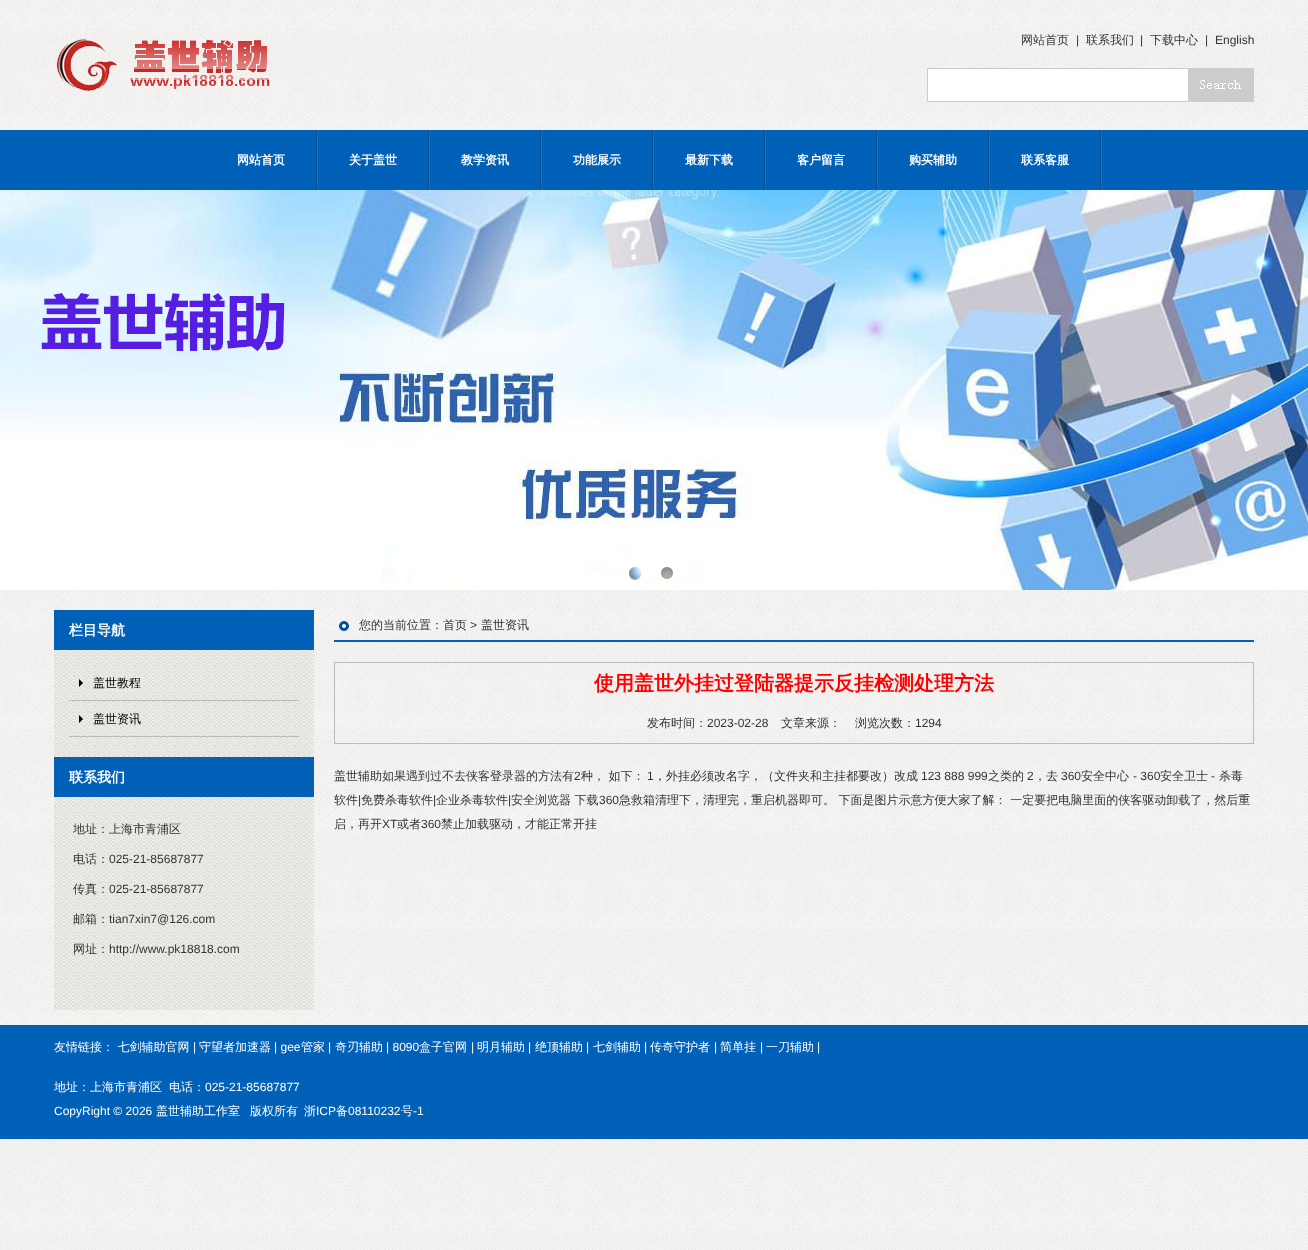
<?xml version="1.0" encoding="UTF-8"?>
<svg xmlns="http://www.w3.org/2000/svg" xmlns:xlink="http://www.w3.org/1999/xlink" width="1308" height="1250">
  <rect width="100%" height="100%" fill="#ffffff" />
  <image x="0" y="0" width="1308" height="1250" xlink:href="image1.png" />
  <image x="56" y="38" width="214" height="53" xlink:href="image2.png" />
  <rect x="927.5" y="68.5" width="261" height="33" fill="#ffffff" stroke="#cccccc" />
  <image x="1189" y="68" width="65" height="34" xlink:href="image3.png" />
  <rect y="130" width="1308" height="60" fill="#0161b8" />
  <image x="316" y="130" width="2" height="60" xlink:href="image4.png" />
  <image x="428" y="130" width="2" height="60" xlink:href="image4.png" />
  <image x="540" y="130" width="2" height="60" xlink:href="image4.png" />
  <image x="652" y="130" width="2" height="60" xlink:href="image4.png" />
  <image x="764" y="130" width="2" height="60" xlink:href="image4.png" />
  <image x="876" y="130" width="2" height="60" xlink:href="image4.png" />
  <image x="988" y="130" width="2" height="60" xlink:href="image4.png" />
  <image x="1100" y="130" width="2" height="60" xlink:href="image4.png" />
  <image x="0" y="190" width="1308" height="400" xlink:href="image5.png" />
  <image x="629" y="567" width="12" height="13" xlink:href="image6.png" />
  <image x="661" y="567" width="12" height="12" xlink:href="image7.png" />
  <image x="54" y="650" width="260" height="360" xlink:href="image8.png" />
  <rect x="54" y="610" width="260" height="40" fill="#0161b8" />
  <rect x="69" y="700" width="230" height="1" fill="#bbbbbb" />
  <image x="79" y="679" width="4" height="8" xlink:href="image9.png" />
  <rect x="69" y="736" width="230" height="1" fill="#bbbbbb" />
  <image x="79" y="715" width="4" height="8" xlink:href="image10.png" />
  <rect x="54" y="757" width="260" height="40" fill="#0161b8" />
  <rect x="334" y="640" width="920" height="2" fill="#0161b8" />
  <image x="339" y="621" width="10" height="10" xlink:href="image11.png" />
  <rect x="334.5" y="662.5" width="919" height="81" fill="none" stroke="#bbbbbb" />
  <rect y="1025" width="1308" height="114" fill="#0161b8" />
  <text x="1021" y="44" style="font-family: WenQuanYi Zen Hei; font-size: 12px; font-weight: 500; fill: #333333">网站首页</text>
  <text x="1076" y="44" style="font-family: Liberation Sans; font-size: 12px; fill: #333333">|</text>
  <text x="1086" y="44" style="font-family: WenQuanYi Zen Hei; font-size: 12px; font-weight: 500; fill: #333333">联系我们</text>
  <text x="1140" y="44" style="font-family: Liberation Sans; font-size: 12px; fill: #333333">|</text>
  <text x="1150" y="44" style="font-family: WenQuanYi Zen Hei; font-size: 12px; font-weight: 500; fill: #333333">下载中心</text>
  <text x="1205" y="44" style="font-family: Liberation Sans; font-size: 12px; fill: #333333">|</text>
  <text x="1215" y="44" style="font-family: Liberation Sans; font-size: 12px; fill: #333333">English</text>
  <text x="237" y="164" style="font-family: WenQuanYi Zen Hei; font-size: 12px; font-weight: bold; fill: #ffffff">网站首页</text>
  <text x="349" y="164" style="font-family: WenQuanYi Zen Hei; font-size: 12px; font-weight: bold; fill: #ffffff">关于盖世</text>
  <text x="461" y="164" style="font-family: WenQuanYi Zen Hei; font-size: 12px; font-weight: bold; fill: #ffffff">教学资讯</text>
  <text x="573" y="164" style="font-family: WenQuanYi Zen Hei; font-size: 12px; font-weight: bold; fill: #ffffff">功能展示</text>
  <text x="685" y="164" style="font-family: WenQuanYi Zen Hei; font-size: 12px; font-weight: bold; fill: #ffffff">最新下载</text>
  <text x="797" y="164" style="font-family: WenQuanYi Zen Hei; font-size: 12px; font-weight: bold; fill: #ffffff">客户留言</text>
  <text x="909" y="164" style="font-family: WenQuanYi Zen Hei; font-size: 12px; font-weight: bold; fill: #ffffff">购买辅助</text>
  <text x="1021" y="164" style="font-family: WenQuanYi Zen Hei; font-size: 12px; font-weight: bold; fill: #ffffff">联系客服</text>
  <text x="69" y="635" style="font-family: WenQuanYi Zen Hei; font-size: 14px; font-weight: bold; fill: #ffffff">栏目导航</text>
  <text x="93" y="687" style="font-family: WenQuanYi Zen Hei; font-size: 12px; font-weight: 500; fill: #000000">盖世教程</text>
  <text x="93" y="723" style="font-family: WenQuanYi Zen Hei; font-size: 12px; font-weight: 500; fill: #000000">盖世资讯</text>
  <text x="69" y="782" style="font-family: WenQuanYi Zen Hei; font-size: 14px; font-weight: bold; fill: #ffffff">联系我们</text>
  <text x="73" y="833" style="font-family: WenQuanYi Zen Hei; font-size: 12px; font-weight: 500; fill: #333333">地址：上海市青浦区</text>
  <text x="73" y="863" style="font-family: WenQuanYi Zen Hei; font-size: 12px; font-weight: 500; fill: #333333">电话：</text>
  <text x="109" y="863" style="font-family: Liberation Sans; font-size: 12px; fill: #333333">025-21-85687877</text>
  <text x="73" y="893" style="font-family: WenQuanYi Zen Hei; font-size: 12px; font-weight: 500; fill: #333333">传真：</text>
  <text x="109" y="893" style="font-family: Liberation Sans; font-size: 12px; fill: #333333">025-21-85687877</text>
  <text x="73" y="923" style="font-family: WenQuanYi Zen Hei; font-size: 12px; font-weight: 500; fill: #333333">邮箱：</text>
  <text x="109" y="923" style="font-family: Liberation Sans; font-size: 12px; fill: #333333">tian7xin7@126.com</text>
  <text x="73" y="953" style="font-family: WenQuanYi Zen Hei; font-size: 12px; font-weight: 500; fill: #333333">网址：</text>
  <text x="109" y="953" style="font-family: Liberation Sans; font-size: 12px; fill: #333333">http://www.pk18818.com</text>
  <text x="359" y="629" style="font-family: WenQuanYi Zen Hei; font-size: 12px; font-weight: 500; fill: #333333">您的当前位置：首页</text>
  <text x="470" y="629" style="font-family: Liberation Sans; font-size: 12px; fill: #333333">&gt;</text>
  <text x="481" y="629" style="font-family: WenQuanYi Zen Hei; font-size: 12px; font-weight: 500; fill: #333333">盖世资讯</text>
  <text x="594" y="690" style="font-family: WenQuanYi Zen Hei; font-size: 20px; font-weight: bold; fill: #ff0000">使用盖世外挂过登陆器提示反挂检测处理方法</text>
  <text x="647" y="727" style="font-family: WenQuanYi Zen Hei; font-size: 12px; font-weight: 500; fill: #333333">发布时间：</text>
  <text x="707" y="727" style="font-family: Liberation Sans; font-size: 12px; fill: #333333">2023-02-28</text>
  <text x="781" y="727" style="font-family: WenQuanYi Zen Hei; font-size: 12px; font-weight: 500; fill: #333333">文章来源：</text>
  <text x="855" y="727" style="font-family: WenQuanYi Zen Hei; font-size: 12px; font-weight: 500; fill: #333333">浏览次数：</text>
  <text x="915" y="727" style="font-family: Liberation Sans; font-size: 12px; fill: #333333">1294</text>
  <text x="334" y="780" style="font-family: WenQuanYi Zen Hei; font-size: 12px; font-weight: 500; fill: #333333">盖世辅助如果遇到过不去侠客登录器的方法有</text>
  <text x="574" y="780" style="font-family: Liberation Sans; font-size: 12px; fill: #333333">2</text>
  <text x="581" y="780" style="font-family: WenQuanYi Zen Hei; font-size: 12px; font-weight: 500; fill: #333333">种， 如下：</text>
  <text x="647" y="780" style="font-family: Liberation Sans; font-size: 12px; fill: #333333">1</text>
  <text x="654" y="780" style="font-family: WenQuanYi Zen Hei; font-size: 12px; font-weight: 500; fill: #333333">，外挂必须改名字，（文件夹和主挂都要改）改成</text>
  <text x="921" y="780" style="font-family: Liberation Sans; font-size: 12px; fill: #333333">123 888 999</text>
  <text x="988" y="780" style="font-family: WenQuanYi Zen Hei; font-size: 12px; font-weight: 500; fill: #333333">之类的</text>
  <text x="1027" y="780" style="font-family: Liberation Sans; font-size: 12px; fill: #333333">2</text>
  <text x="1034" y="780" style="font-family: WenQuanYi Zen Hei; font-size: 12px; font-weight: 500; fill: #333333">，去</text>
  <text x="1061" y="780" style="font-family: Liberation Sans; font-size: 12px; fill: #333333">360</text>
  <text x="1081" y="780" style="font-family: WenQuanYi Zen Hei; font-size: 12px; font-weight: 500; fill: #333333">安全中心</text>
  <text x="1133" y="780" style="font-family: Liberation Sans; font-size: 12px; fill: #333333">- 360</text>
  <text x="1160" y="780" style="font-family: WenQuanYi Zen Hei; font-size: 12px; font-weight: 500; fill: #333333">安全卫士</text>
  <text x="1211" y="780" style="font-family: Liberation Sans; font-size: 12px; fill: #333333">-</text>
  <text x="1219" y="780" style="font-family: WenQuanYi Zen Hei; font-size: 12px; font-weight: 500; fill: #333333">杀毒</text>
  <text x="334" y="804" style="font-family: WenQuanYi Zen Hei; font-size: 12px; font-weight: 500; fill: #333333">软件</text>
  <text x="358" y="804" style="font-family: Liberation Sans; font-size: 12px; fill: #333333">|</text>
  <text x="361" y="804" style="font-family: WenQuanYi Zen Hei; font-size: 12px; font-weight: 500; fill: #333333">免费杀毒软件</text>
  <text x="433" y="804" style="font-family: Liberation Sans; font-size: 12px; fill: #333333">|</text>
  <text x="436" y="804" style="font-family: WenQuanYi Zen Hei; font-size: 12px; font-weight: 500; fill: #333333">企业杀毒软件</text>
  <text x="508" y="804" style="font-family: Liberation Sans; font-size: 12px; fill: #333333">|</text>
  <text x="511" y="804" style="font-family: WenQuanYi Zen Hei; font-size: 12px; font-weight: 500; fill: #333333">安全浏览器 下载</text>
  <text x="599" y="804" style="font-family: Liberation Sans; font-size: 12px; fill: #333333">360</text>
  <text x="619" y="804" style="font-family: WenQuanYi Zen Hei; font-size: 12px; font-weight: 500; fill: #333333">急救箱清理下，清理完，重启机器即可。 下面是图片示意方便大家了解： 一定要把电脑里面的侠客驱动卸载了，然后重</text>
  <text x="334" y="828" style="font-family: WenQuanYi Zen Hei; font-size: 12px; font-weight: 500; fill: #333333">启，再开</text>
  <text x="382" y="828" style="font-family: Liberation Sans; font-size: 12px; fill: #333333">XT</text>
  <text x="397" y="828" style="font-family: WenQuanYi Zen Hei; font-size: 12px; font-weight: 500; fill: #333333">或者</text>
  <text x="421" y="828" style="font-family: Liberation Sans; font-size: 12px; fill: #333333">360</text>
  <text x="441" y="828" style="font-family: WenQuanYi Zen Hei; font-size: 12px; font-weight: 500; fill: #333333">禁止加载驱动，才能正常开挂</text>
  <text x="54" y="1051" style="font-family: WenQuanYi Zen Hei; font-size: 12px; font-weight: 500; fill: #ffffff">友情链接： 七剑辅助官网</text>
  <text x="193" y="1051" style="font-family: Liberation Sans; font-size: 12px; fill: #ffffff">|</text>
  <text x="199" y="1051" style="font-family: WenQuanYi Zen Hei; font-size: 12px; font-weight: 500; fill: #ffffff">守望者加速器</text>
  <text x="274" y="1051" style="font-family: Liberation Sans; font-size: 12px; fill: #ffffff">| gee</text>
  <text x="301" y="1051" style="font-family: WenQuanYi Zen Hei; font-size: 12px; font-weight: 500; fill: #ffffff">管家</text>
  <text x="328" y="1051" style="font-family: Liberation Sans; font-size: 12px; fill: #ffffff">|</text>
  <text x="335" y="1051" style="font-family: WenQuanYi Zen Hei; font-size: 12px; font-weight: 500; fill: #ffffff">奇刃辅助</text>
  <text x="386" y="1051" style="font-family: Liberation Sans; font-size: 12px; fill: #ffffff">| 8090</text>
  <text x="419" y="1051" style="font-family: WenQuanYi Zen Hei; font-size: 12px; font-weight: 500; fill: #ffffff">盒子官网</text>
  <text x="471" y="1051" style="font-family: Liberation Sans; font-size: 12px; fill: #ffffff">|</text>
  <text x="477" y="1051" style="font-family: WenQuanYi Zen Hei; font-size: 12px; font-weight: 500; fill: #ffffff">明月辅助</text>
  <text x="528" y="1051" style="font-family: Liberation Sans; font-size: 12px; fill: #ffffff">|</text>
  <text x="535" y="1051" style="font-family: WenQuanYi Zen Hei; font-size: 12px; font-weight: 500; fill: #ffffff">绝顶辅助</text>
  <text x="586" y="1051" style="font-family: Liberation Sans; font-size: 12px; fill: #ffffff">|</text>
  <text x="593" y="1051" style="font-family: WenQuanYi Zen Hei; font-size: 12px; font-weight: 500; fill: #ffffff">七剑辅助</text>
  <text x="644" y="1051" style="font-family: Liberation Sans; font-size: 12px; fill: #ffffff">|</text>
  <text x="650" y="1051" style="font-family: WenQuanYi Zen Hei; font-size: 12px; font-weight: 500; fill: #ffffff">传奇守护者</text>
  <text x="714" y="1051" style="font-family: Liberation Sans; font-size: 12px; fill: #ffffff">|</text>
  <text x="720" y="1051" style="font-family: WenQuanYi Zen Hei; font-size: 12px; font-weight: 500; fill: #ffffff">简单挂</text>
  <text x="760" y="1051" style="font-family: Liberation Sans; font-size: 12px; fill: #ffffff">|</text>
  <text x="766" y="1051" style="font-family: WenQuanYi Zen Hei; font-size: 12px; font-weight: 500; fill: #ffffff">一刀辅助</text>
  <text x="817" y="1051" style="font-family: Liberation Sans; font-size: 12px; fill: #ffffff">|</text>
  <text x="54" y="1091" style="font-family: WenQuanYi Zen Hei; font-size: 12px; font-weight: 500; fill: #ffffff">地址：上海市青浦区</text>
  <text x="169" y="1091" style="font-family: WenQuanYi Zen Hei; font-size: 12px; font-weight: 500; fill: #ffffff">电话：</text>
  <text x="205" y="1091" style="font-family: Liberation Sans; font-size: 12px; fill: #ffffff">025-21-85687877</text>
  <text x="54" y="1115" style="font-family: Liberation Sans; font-size: 12px; fill: #ffffff">CopyRight © 2026</text>
  <text x="156" y="1115" style="font-family: WenQuanYi Zen Hei; font-size: 12px; font-weight: 500; fill: #ffffff">盖世辅助工作室</text>
  <text x="250" y="1115" style="font-family: WenQuanYi Zen Hei; font-size: 12px; font-weight: 500; fill: #ffffff">版权所有</text>
  <text x="304" y="1115" style="font-family: WenQuanYi Zen Hei; font-size: 12px; font-weight: 500; fill: #ffffff">浙</text>
  <text x="316" y="1115" style="font-family: Liberation Sans; font-size: 12px; fill: #ffffff">ICP</text>
  <text x="336" y="1115" style="font-family: WenQuanYi Zen Hei; font-size: 12px; font-weight: 500; fill: #ffffff">备</text>
  <text x="348" y="1115" style="font-family: Liberation Sans; font-size: 12px; fill: #ffffff">08110232</text>
  <text x="401" y="1115" style="font-family: WenQuanYi Zen Hei; font-size: 12px; font-weight: 500; fill: #ffffff">号</text>
  <text x="413" y="1115" style="font-family: Liberation Sans; font-size: 12px; fill: #ffffff">-1</text>
</svg>
